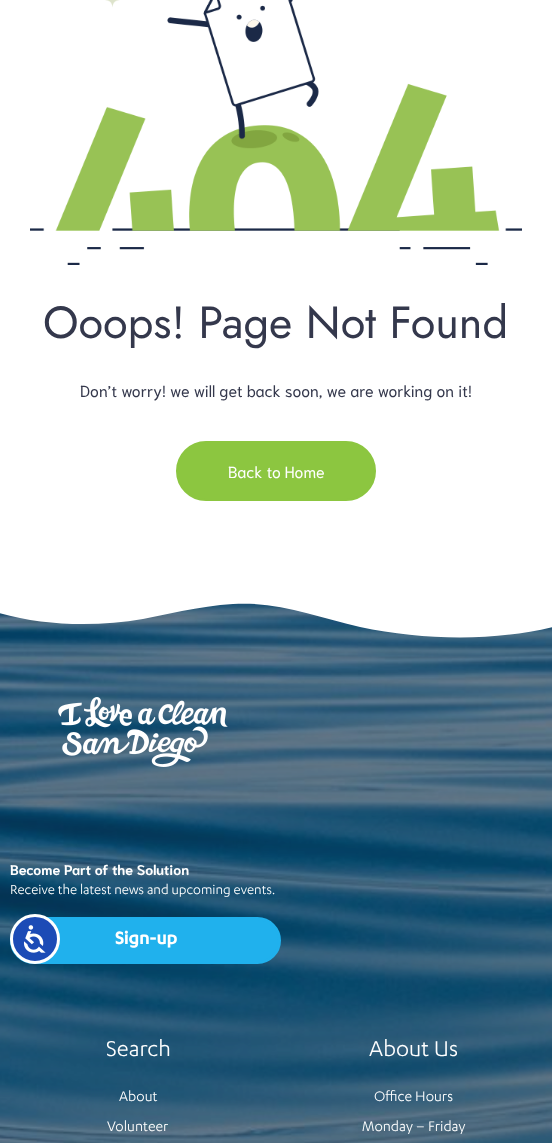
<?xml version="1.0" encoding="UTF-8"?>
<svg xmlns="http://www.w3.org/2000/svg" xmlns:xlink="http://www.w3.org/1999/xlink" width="552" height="1143">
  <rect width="100%" height="100%" fill="#ffffff" />
  <image x="30" y="0" width="492" height="265" xlink:href="image1.png" />
  <rect x="177" y="442" width="198" height="58" rx="29" fill="#8cc640" stroke="#8cc640" stroke-width="2" />
  <image x="0" y="603" width="552" height="540" xlink:href="image2.png" />
  <path d="M 233 604 c 43 -3 85 13 127 23 c 63 13 130 15 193 0 v -25 h -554 v 11 c 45 13 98 14 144 6 l 39 -8 c 17 -3 34 -6 51 -7 z" fill="#ffffff" />
  <image x="58" y="697" width="170" height="70" xlink:href="image3.png" />
  <rect x="11.5" y="918.5" width="268" height="44" rx="22" fill="#20b1ed" stroke="#20b1ed" stroke-width="3" />
  <circle cx="35" cy="939" r="23.5" fill="#1c4bb6" stroke="#ffffff" stroke-width="3" />
  <image x="23" y="925" width="23" height="28" xlink:href="image4.png" />
  <text x="43" y="338" style="font-family: Jost; font-size: 45px; fill: #34384c">Ooops! Page Not Found</text>
  <text x="80" y="397" style="font-family: Niramit; font-size: 16px; fill: #34384c">Don’t worry! we will get back soon, we are working on it!</text>
  <text x="228" y="478" style="font-family: Niramit; font-size: 16px; fill: #ffffff">Back to Home</text>
  <text x="10" y="875" style="font-family: Niramit; font-size: 14px; font-weight: bold; fill: #ffffff">Become Part of the Solution</text>
  <text x="10" y="894" style="font-family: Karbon; font-size: 15px; fill: #ffffff">Receive the latest news and upcoming events.</text>
  <text x="115" y="944" style="font-family: Karbon; font-size: 20px; font-weight: bold; fill: #ffffff">Sign-up</text>
  <text x="106" y="1056" style="font-family: Karbon; font-size: 25px; fill: #ffffff">Search</text>
  <text x="119" y="1101" style="font-family: Karbon; font-size: 16px; fill: #ffffff">About</text>
  <text x="107" y="1131" style="font-family: Karbon; font-size: 16px; fill: #ffffff">Volunteer</text>
  <text x="369" y="1056" style="font-family: Karbon; font-size: 25px; fill: #ffffff">About Us</text>
  <text x="374" y="1101" style="font-family: Karbon; font-size: 16px; fill: #ffffff">Office Hours</text>
  <text x="362" y="1131" style="font-family: Karbon; font-size: 16px; fill: #ffffff">Monday – Friday</text>
</svg>
